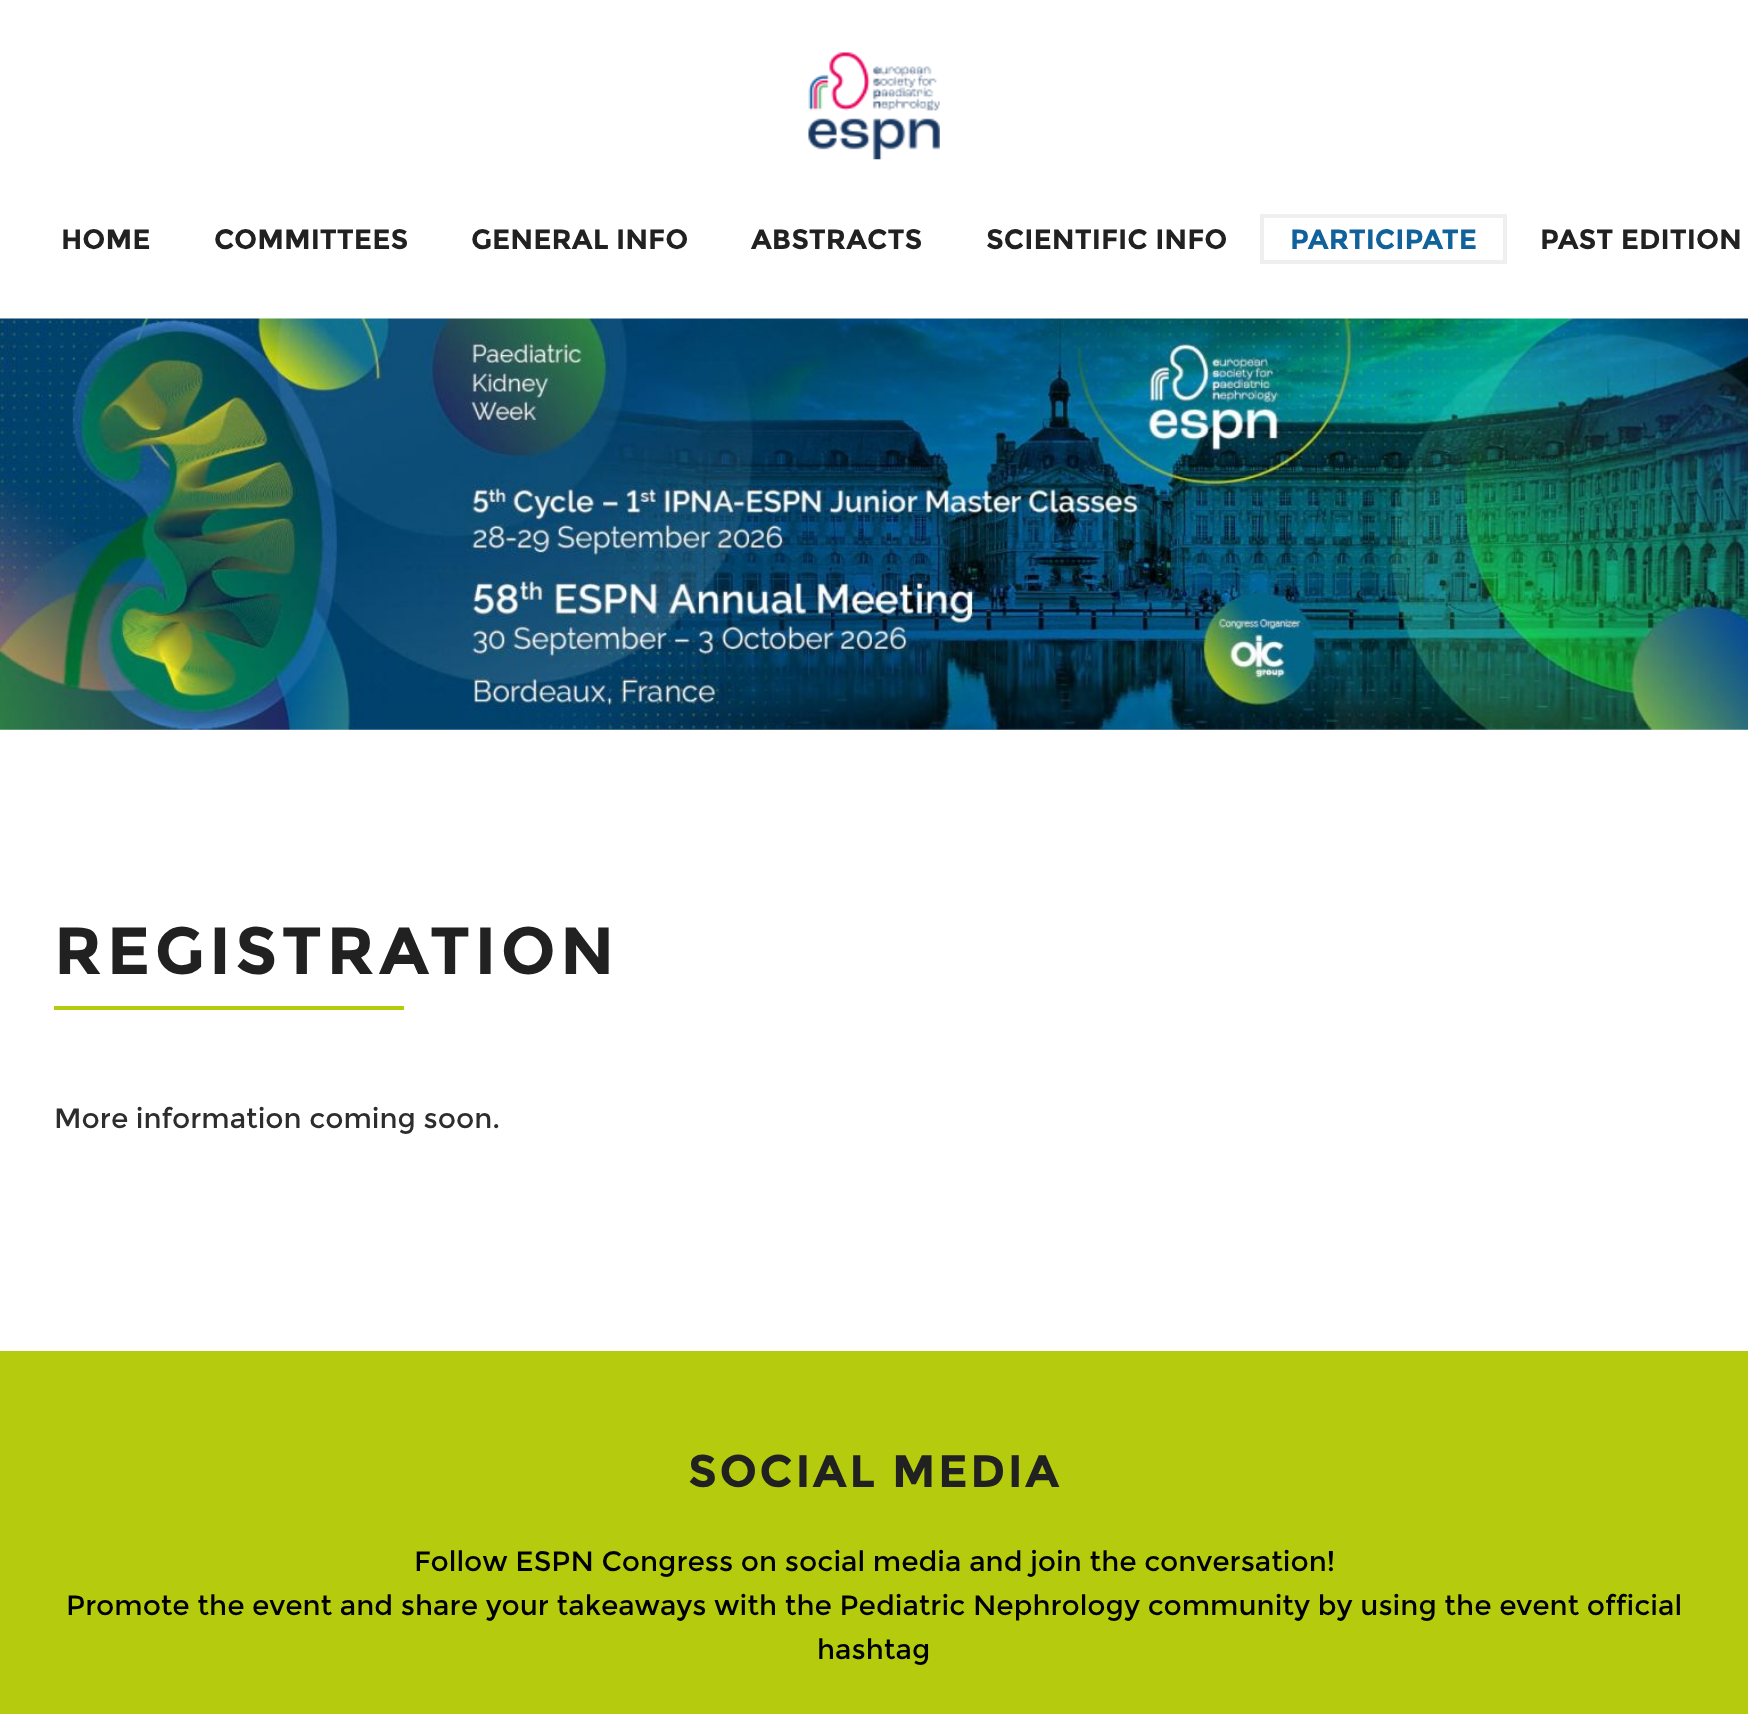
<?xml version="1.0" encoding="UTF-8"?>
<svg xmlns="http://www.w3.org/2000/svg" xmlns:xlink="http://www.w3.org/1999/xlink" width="1748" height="1714">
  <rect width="100%" height="100%" fill="#ffffff" />
  <image x="808" y="52" width="132" height="108" xlink:href="image1.png" />
  <rect x="1262" y="216" width="243" height="46" fill="none" stroke="#efefef" stroke-width="4" />
  <image x="0" y="318" width="1748" height="412" xlink:href="image2.png" />
  <rect x="54" y="1006" width="350" height="4" fill="#b4cc0d" />
  <rect y="1351" width="1748" height="363" fill="#b4cc0d" />
  <text x="61" y="249" style="font-family: Montserrat; font-size: 28px; font-weight: bold; fill: #212121">HOME</text>
  <text x="214" y="249" style="font-family: Montserrat; font-size: 28px; font-weight: bold; fill: #212121">COMMITTEES</text>
  <text x="471" y="249" style="font-family: Montserrat; font-size: 28px; font-weight: bold; fill: #212121">GENERAL INFO</text>
  <text x="751" y="249" style="font-family: Montserrat; font-size: 28px; font-weight: bold; fill: #212121">ABSTRACTS</text>
  <text x="986" y="249" style="font-family: Montserrat; font-size: 28px; font-weight: bold; fill: #212121">SCIENTIFIC INFO</text>
  <text x="1290" y="249" style="font-family: Montserrat; font-size: 28px; font-weight: bold; fill: #11619a">PARTICIPATE</text>
  <text x="1540" y="249" style="font-family: Montserrat; font-size: 28px; font-weight: bold; fill: #212121">PAST EDITION</text>
  <text x="54" y="974" style="font-family: Montserrat; font-size: 66.5px; font-weight: bold; letter-spacing: 4.4px; fill: #212121">REGISTRATION</text>
  <text x="54" y="1128" style="font-family: Montserrat; font-size: 28px; fill: #2d2d2d">More information coming soon.</text>
  <text x="688" y="1487" style="font-family: Montserrat; font-size: 45.5px; font-weight: bold; letter-spacing: 2.5px; fill: #212121">SOCIAL MEDIA</text>
  <text x="414" y="1571" style="font-family: Montserrat; font-size: 28px; fill: #000000">Follow ESPN Congress on social media and join the conversation!</text>
  <text x="66" y="1615" style="font-family: Montserrat; font-size: 28px; fill: #000000">Promote the event and share your takeaways with the Pediatric Nephrology community by using the event official</text>
  <text x="817" y="1659" style="font-family: Montserrat; font-size: 28px; fill: #000000">hashtag</text>
</svg>
